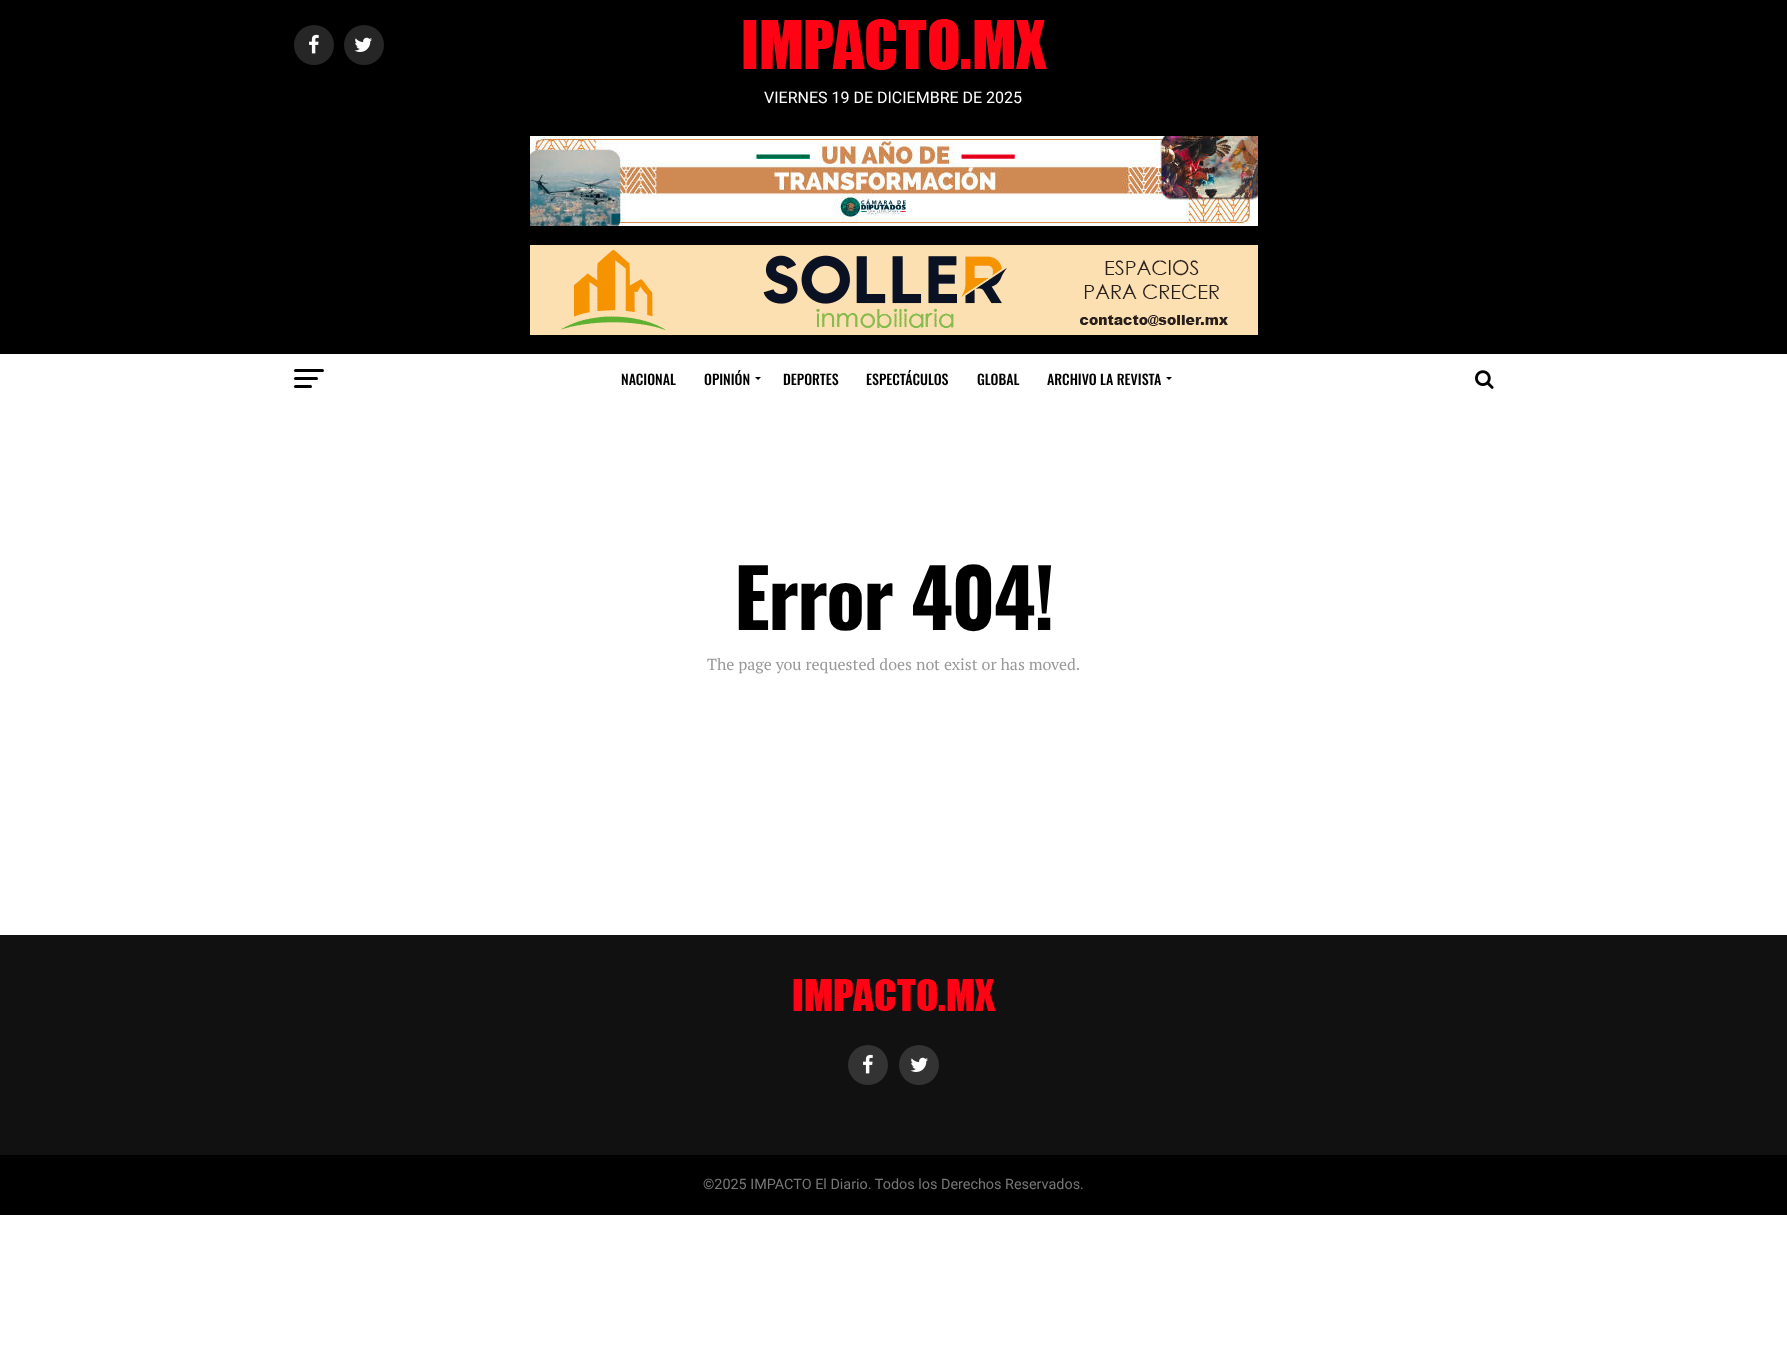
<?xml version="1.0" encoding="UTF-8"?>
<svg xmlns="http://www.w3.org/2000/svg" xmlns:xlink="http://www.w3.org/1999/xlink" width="1787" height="1356">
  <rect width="100%" height="100%" fill="#ffffff" />
  <rect width="1787" height="354" fill="#000000" />
  <image x="530" y="136" width="728" height="90" xlink:href="image1.png" />
  <image x="530" y="245" width="728" height="90" xlink:href="image2.png" />
  <circle cx="314" cy="45" r="20" fill="#262626" />
  <image x="309" y="34" width="10" height="20" xlink:href="image3.png" />
  <circle cx="364" cy="45" r="20" fill="#262626" />
  <image x="354" y="37" width="18" height="15" xlink:href="image4.png" />
  <image x="743" y="19" width="304" height="51" xlink:href="image5.png" />
  <rect x="294" y="369" width="30" height="3" rx="1.5" fill="#000000" />
  <rect x="294" y="377" width="24" height="3" rx="1.5" fill="#000000" />
  <rect x="294" y="385" width="18" height="3" rx="1.5" fill="#000000" />
  <path d="M 755 377 h 6 l -3 3 z" fill="#000000" />
  <path d="M 1166 377 h 6 l -3 3 z" fill="#000000" />
  <image x="1475" y="370" width="19" height="19" xlink:href="image6.png" />
  <rect y="935" width="1787" height="220" fill="#111111" />
  <image x="793" y="979" width="203" height="32" xlink:href="image7.png" />
  <circle cx="868" cy="1065" r="20" fill="#333333" />
  <image x="863" y="1054" width="10" height="20" xlink:href="image8.png" />
  <circle cx="919" cy="1065" r="20" fill="#333333" />
  <image x="910" y="1057" width="18" height="15" xlink:href="image9.png" />
  <rect y="1155" width="1787" height="60" fill="#000000" />
  <text x="764" y="103" style="font-family: Roboto; font-size: 16px; fill: #ffffff">VIERNES 19 DE DICIEMBRE DE 2025</text>
  <text x="621" y="385" style="font-family: Oswald; font-size: 14px; font-weight: 500; fill: #000000">NACIONAL</text>
  <text x="704" y="385" style="font-family: Oswald; font-size: 14px; font-weight: 500; fill: #000000">OPINIÓN</text>
  <text x="783" y="385" style="font-family: Oswald; font-size: 14px; font-weight: 500; fill: #000000">DEPORTES</text>
  <text x="866" y="385" style="font-family: Oswald; font-size: 14px; font-weight: 500; fill: #000000">ESPECTÁCULOS</text>
  <text x="977" y="385" style="font-family: Oswald; font-size: 14px; font-weight: 500; fill: #000000">GLOBAL</text>
  <text x="1047" y="385" style="font-family: Oswald; font-size: 14px; font-weight: 500; fill: #000000">ARCHIVO LA REVISTA</text>
  <text x="734" y="630" style="font-family: Oswald; font-size: 80px; font-weight: bold; letter-spacing: -1.6px; fill: #000000">Error 404!</text>
  <text x="707" y="670" style="font-family: PT Serif; font-size: 16px; fill: #999999">The page you requested does not exist or has moved.</text>
  <text x="703" y="1189" style="font-family: Roboto; font-size: 14.4px; fill: #777777">©2025 IMPACTO El Diario. Todos los Derechos Reservados.</text>
</svg>
